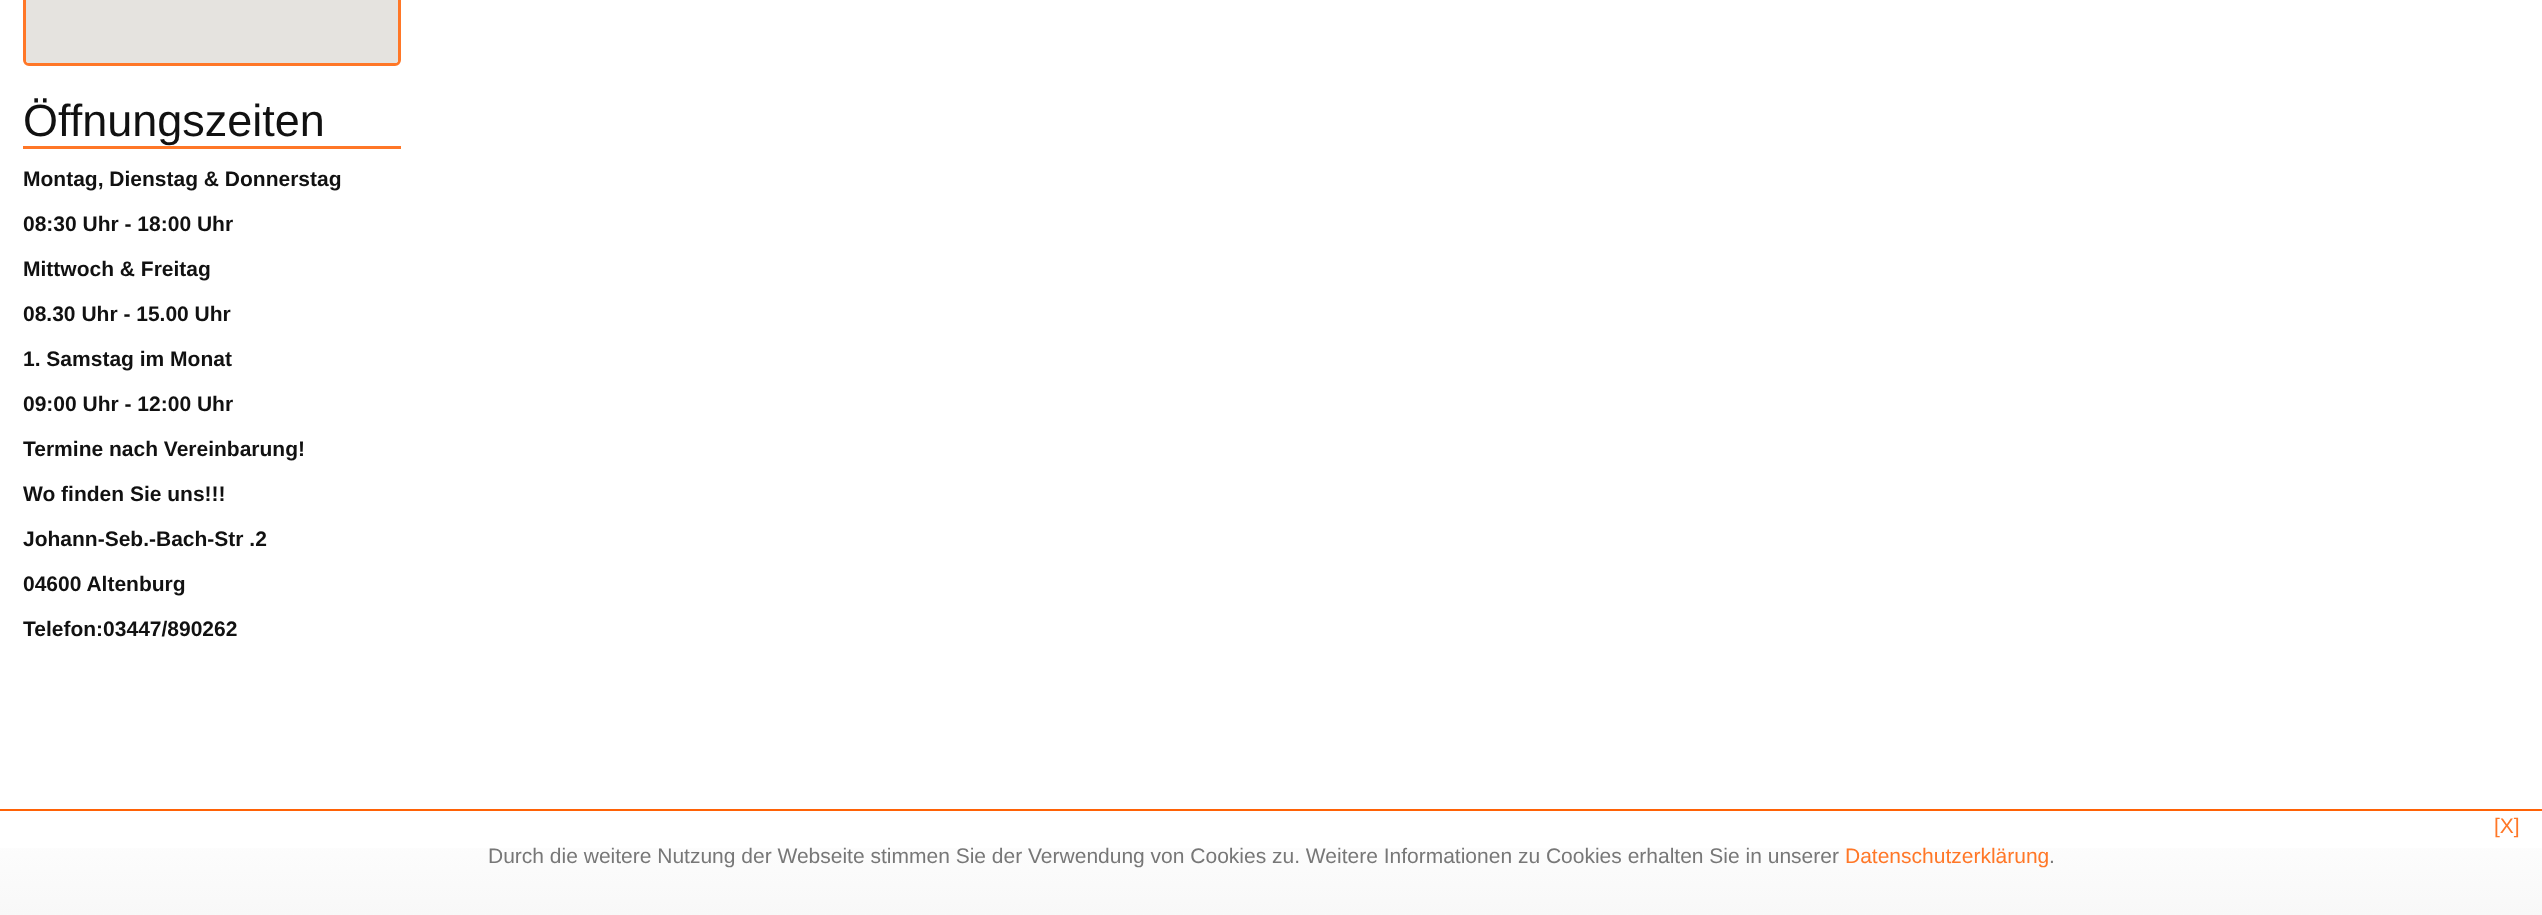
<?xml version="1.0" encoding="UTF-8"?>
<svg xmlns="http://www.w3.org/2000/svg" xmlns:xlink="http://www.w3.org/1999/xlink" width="2542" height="915">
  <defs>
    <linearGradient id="g1" gradientUnits="userSpaceOnUse" x1="1271" y1="810" x2="1271" y2="915"><stop offset="0" stop-color="#ffffff" /><stop offset="1" stop-color="#f8f8f8" /></linearGradient>
  </defs>
  <rect width="100%" height="100%" fill="#ffffff" />
  <rect x="24.5" y="-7.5" width="375" height="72" rx="4.5" fill="none" stroke="#ff7727" stroke-width="3" />
  <rect x="26" y="-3" width="372" height="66" rx="3" fill="#e5e3df" />
  <rect x="23" y="146" width="378" height="3" fill="#ff7727" />
  <rect y="848" width="2542" height="67" fill="url(#g1)" />
  <rect y="809" width="2542" height="2" fill="#ff6206" />
  <text x="23" y="136" style="font-family: Liberation Sans; font-size: 45px; fill: #111111">Öffnungszeiten</text>
  <text x="23" y="186" style="font-family: Liberation Sans; font-size: 21px; font-weight: bold; fill: #111111">Montag, Dienstag &amp; Donnerstag</text>
  <text x="23" y="231" style="font-family: Liberation Sans; font-size: 21px; font-weight: bold; fill: #111111">08:30 Uhr - 18:00 Uhr</text>
  <text x="23" y="276" style="font-family: Liberation Sans; font-size: 21px; font-weight: bold; fill: #111111">Mittwoch &amp; Freitag</text>
  <text x="23" y="321" style="font-family: Liberation Sans; font-size: 21px; font-weight: bold; fill: #111111">08.30 Uhr - 15.00 Uhr</text>
  <text x="23" y="366" style="font-family: Liberation Sans; font-size: 21px; font-weight: bold; fill: #111111">1. Samstag im Monat</text>
  <text x="23" y="411" style="font-family: Liberation Sans; font-size: 21px; font-weight: bold; fill: #111111">09:00 Uhr - 12:00 Uhr</text>
  <text x="23" y="456" style="font-family: Liberation Sans; font-size: 21px; font-weight: bold; fill: #111111">Termine nach Vereinbarung!</text>
  <text x="23" y="501" style="font-family: Liberation Sans; font-size: 21px; font-weight: bold; fill: #111111">Wo finden Sie uns!!!</text>
  <text x="23" y="546" style="font-family: Liberation Sans; font-size: 21px; font-weight: bold; fill: #111111">Johann-Seb.-Bach-Str .2</text>
  <text x="23" y="591" style="font-family: Liberation Sans; font-size: 21px; font-weight: bold; fill: #111111">04600 Altenburg</text>
  <text x="23" y="636" style="font-family: Liberation Sans; font-size: 21px; font-weight: bold; fill: #111111">Telefon:03447/890262</text>
  <text x="2494" y="833" style="font-family: Liberation Sans; font-size: 21px; fill: #ff7727">[X]</text>
  <text x="488" y="863" style="font-family: Liberation Sans; font-size: 21px; fill: #777777">Durch die weitere Nutzung der Webseite stimmen Sie der Verwendung von Cookies zu. Weitere Informationen zu Cookies erhalten Sie in unserer</text>
  <text x="1845" y="863" style="font-family: Liberation Sans; font-size: 21px; fill: #ff7727">Datenschutzerklärung</text>
  <text x="2049" y="863" style="font-family: Liberation Sans; font-size: 21px; fill: #777777">.</text>
</svg>
